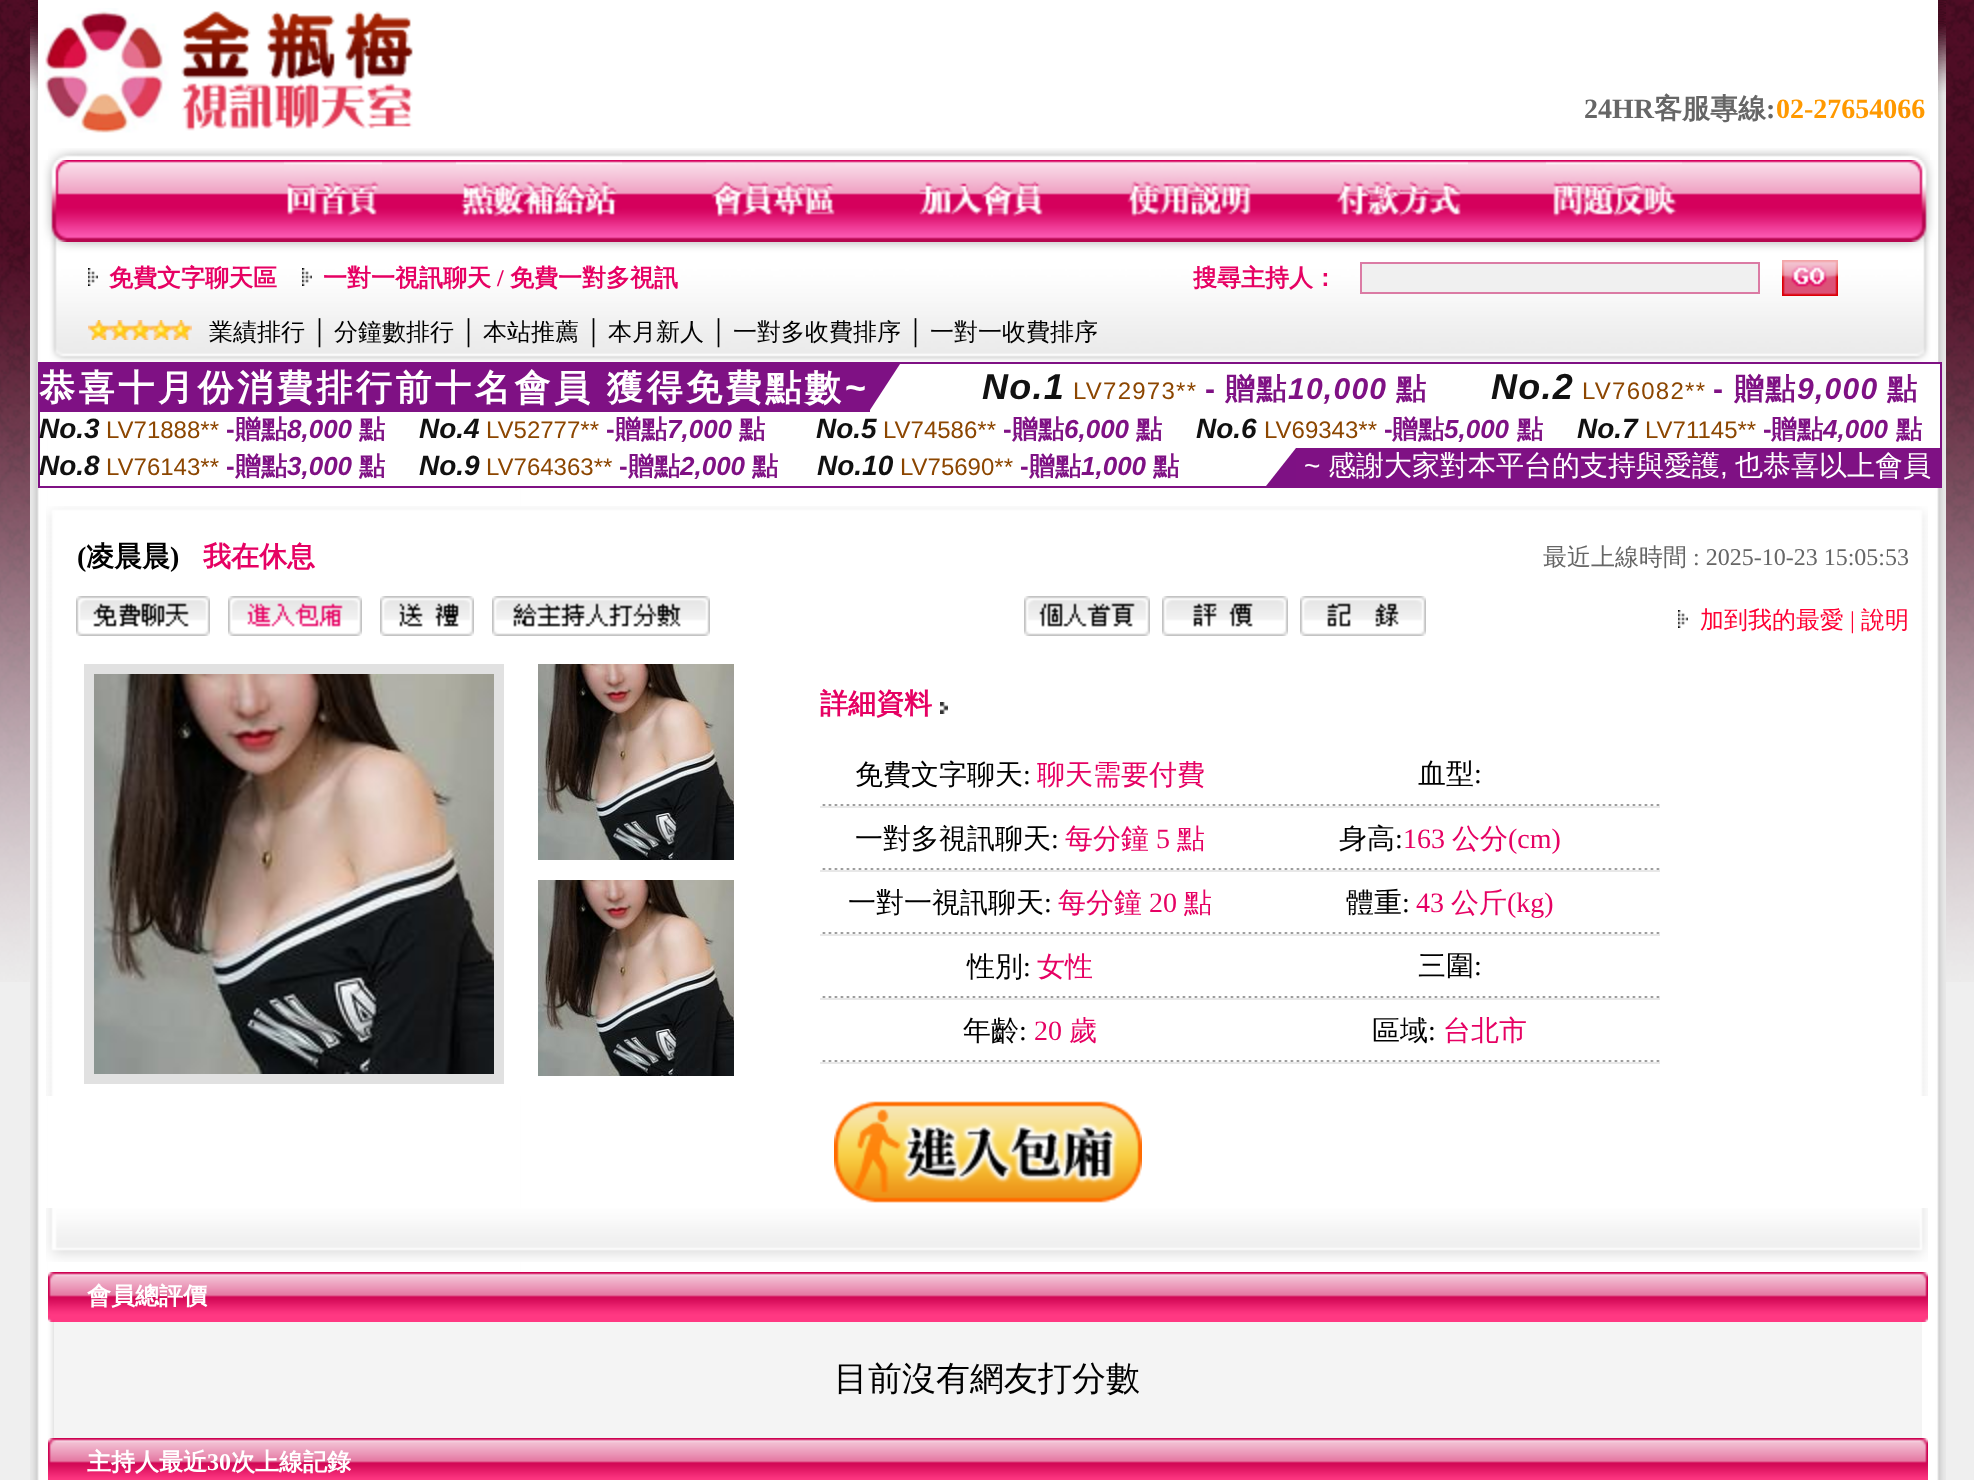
<?xml version="1.0" encoding="UTF-8"?>
<svg xmlns="http://www.w3.org/2000/svg" xmlns:xlink="http://www.w3.org/1999/xlink" width="1974" height="1480">
  <rect width="100%" height="100%" fill="#efefef" />
  <image x="0" y="0" width="1974" height="982" xlink:href="image1.png" />
  <image x="30" y="100" width="1916" height="1380" xlink:href="image2.png" />
  <image x="30" y="0" width="8" height="100" xlink:href="image3.png" />
  <image x="1938" y="0" width="8" height="100" xlink:href="image4.png" />
  <rect x="38" width="1900" height="160" fill="#ffffff" />
  <image x="44" y="8" width="369" height="125" xlink:href="image5.png" />
  <image x="48" y="148" width="1882" height="12" xlink:href="image6.png" />
  <image x="69" y="160" width="1" height="82" xlink:href="image7.png" />
  <image x="38" y="160" width="31" height="82" xlink:href="image8.png" />
  <image x="70" y="160" width="1838" height="82" xlink:href="image9.png" />
  <image x="284" y="161" width="98" height="56" xlink:href="image10.png" />
  <image x="456" y="161" width="166" height="56" xlink:href="image11.png" />
  <image x="706" y="162" width="129" height="55" xlink:href="image12.png" />
  <image x="919" y="181" width="124" height="36" xlink:href="image13.png" />
  <image x="1127" y="162" width="129" height="55" xlink:href="image14.png" />
  <image x="1330" y="161" width="138" height="56" xlink:href="image15.png" />
  <image x="1546" y="161" width="136" height="56" xlink:href="image16.png" />
  <image x="1908" y="160" width="30" height="82" xlink:href="image17.png" />
  <image x="38" y="242" width="1900" height="120" xlink:href="image18.png" />
  <image x="88" y="268" width="10" height="18" xlink:href="image19.png" />
  <image x="302" y="268" width="10" height="18" xlink:href="image20.png" />
  <rect x="1361" y="263" width="398" height="30" fill="#f0f0f0" stroke="#db7ba4" stroke-width="2" />
  <image x="1782" y="260" width="56" height="36" xlink:href="image21.png" />
  <image x="88" y="320" width="104" height="20" xlink:href="image22.png" />
  <rect x="48" y="364" width="1892" height="122" fill="#ffffff" />
  <rect x="39" y="363" width="1902" height="124" fill="none" stroke="#7f1184" stroke-width="2" />
  <rect x="40" y="364" width="830" height="48" fill="#7f1184" />
  <path d="M 870 364 h 30 l -30 46 z" fill="#7e1184" />
  <path d="M 1296 486 h -30 l 30 -38 z" fill="#7e1184" />
  <rect x="1296" y="448" width="644" height="38" fill="#7f1184" />
  <rect x="48" y="488" width="472" height="784" fill="#ffffff" />
  <image x="46" y="506" width="1882" height="12" xlink:href="image23.png" />
  <image x="46" y="518" width="1882" height="126" xlink:href="image24.png" />
  <image x="76" y="596" width="134" height="40" xlink:href="image25.png" />
  <image x="228" y="596" width="134" height="40" xlink:href="image26.png" />
  <image x="380" y="596" width="94" height="40" xlink:href="image27.png" />
  <image x="492" y="596" width="218" height="40" xlink:href="image28.png" />
  <image x="1024" y="596" width="126" height="40" xlink:href="image29.png" />
  <image x="1162" y="596" width="126" height="40" xlink:href="image30.png" />
  <image x="1300" y="596" width="126" height="40" xlink:href="image31.png" />
  <image x="1678" y="610" width="10" height="18" xlink:href="image32.png" />
  <image x="46" y="644" width="1882" height="452" xlink:href="image33.png" />
  <rect x="89" y="669" width="410" height="410" fill="none" stroke="#e1e1e1" stroke-width="10" />
  <image x="94" y="674" width="400" height="400" xlink:href="image34.png" />
  <image x="538" y="664" width="196" height="196" xlink:href="image35.png" />
  <image x="538" y="880" width="196" height="196" xlink:href="image36.png" />
  <image x="940" y="702" width="8" height="12" xlink:href="image37.png" />
  <image x="822" y="804" width="418" height="2" xlink:href="image38.png" />
  <rect x="820" y="806" width="840" height="2" fill="#e8e8e8" />
  <image x="1242" y="804" width="418" height="2" xlink:href="image38.png" />
  <image x="822" y="868" width="418" height="2" xlink:href="image38.png" />
  <rect x="820" y="870" width="840" height="2" fill="#e8e8e8" />
  <image x="1242" y="868" width="418" height="2" xlink:href="image38.png" />
  <image x="822" y="932" width="418" height="2" xlink:href="image38.png" />
  <rect x="820" y="934" width="840" height="2" fill="#e8e8e8" />
  <image x="1242" y="932" width="418" height="2" xlink:href="image38.png" />
  <image x="822" y="996" width="418" height="2" xlink:href="image38.png" />
  <rect x="820" y="998" width="840" height="2" fill="#e8e8e8" />
  <image x="1242" y="996" width="418" height="2" xlink:href="image38.png" />
  <image x="822" y="1060" width="418" height="2" xlink:href="image38.png" />
  <rect x="820" y="1062" width="840" height="2" fill="#e8e8e8" />
  <image x="1242" y="1060" width="418" height="2" xlink:href="image38.png" />
  <image x="834" y="1101" width="308" height="102" xlink:href="image39.png" />
  <image x="46" y="1208" width="1882" height="54" xlink:href="image40.png" />
  <image x="56" y="1272" width="32" height="50" xlink:href="image41.png" />
  <image x="48" y="1272" width="8" height="50" xlink:href="image42.png" />
  <image x="88" y="1272" width="1212" height="50" xlink:href="image43.png" />
  <image x="1300" y="1272" width="620" height="50" xlink:href="image44.png" />
  <image x="1920" y="1272" width="8" height="50" xlink:href="image45.png" />
  <rect x="54" y="1322" width="1868" height="116" fill="#f4f4f4" />
  <image x="48" y="1438" width="40" height="42" xlink:href="image46.png" />
  <image x="48" y="1438" width="8" height="25" xlink:href="image47.png" />
  <image x="88" y="1438" width="1212" height="42" xlink:href="image48.png" />
  <image x="1300" y="1438" width="628" height="42" xlink:href="image49.png" />
  <image x="1920" y="1438" width="8" height="25" xlink:href="image50.png" />
  <text x="1584" y="118" style="font-family: Liberation Serif; font-size: 28px; font-weight: bold; fill: #666666">24HR</text>
  <text x="1654" y="118" style="font-family: WenQuanYi Zen Hei; font-size: 28px; font-weight: bold; fill: #666666">客服專線</text>
  <text x="1766" y="118" style="font-family: Liberation Serif; font-size: 28px; font-weight: bold; fill: #666666">:</text>
  <text x="1776" y="118" style="font-family: Liberation Serif; font-size: 28px; font-weight: bold; fill: #ff9900">02-27654066</text>
  <text x="109" y="286" style="font-family: WenQuanYi Zen Hei; font-size: 24px; font-weight: bold; fill: #e60163">免費文字聊天區</text>
  <text x="323" y="286" style="font-family: WenQuanYi Zen Hei; font-size: 24px; font-weight: bold; fill: #e60163">一對一視訊聊天</text>
  <text x="497" y="286" style="font-family: Liberation Serif; font-size: 24px; font-weight: bold; fill: #e60163">/</text>
  <text x="510" y="286" style="font-family: WenQuanYi Zen Hei; font-size: 24px; font-weight: bold; fill: #e60163">免費一對多視訊</text>
  <text x="1193" y="286" style="font-family: WenQuanYi Zen Hei; font-size: 24px; font-weight: bold; fill: #e60163">搜尋主持人：</text>
  <text x="209" y="340" style="font-family: WenQuanYi Zen Hei; font-size: 24px; font-weight: 500; fill: #000000">業績排行</text>
  <text x="311" y="340" style="font-family: Liberation Serif; font-size: 24px; fill: #000000">│</text>
  <text x="334" y="340" style="font-family: WenQuanYi Zen Hei; font-size: 24px; font-weight: 500; fill: #000000">分鐘數排行</text>
  <text x="460" y="340" style="font-family: Liberation Serif; font-size: 24px; fill: #000000">│</text>
  <text x="483" y="340" style="font-family: WenQuanYi Zen Hei; font-size: 24px; font-weight: 500; fill: #000000">本站推薦</text>
  <text x="585" y="340" style="font-family: Liberation Serif; font-size: 24px; fill: #000000">│</text>
  <text x="608" y="340" style="font-family: WenQuanYi Zen Hei; font-size: 24px; font-weight: 500; fill: #000000">本月新人</text>
  <text x="710" y="340" style="font-family: Liberation Serif; font-size: 24px; fill: #000000">│</text>
  <text x="733" y="340" style="font-family: WenQuanYi Zen Hei; font-size: 24px; font-weight: 500; fill: #000000">一對多收費排序</text>
  <text x="907" y="340" style="font-family: Liberation Serif; font-size: 24px; fill: #000000">│</text>
  <text x="930" y="340" style="font-family: WenQuanYi Zen Hei; font-size: 24px; font-weight: 500; fill: #000000">一對一收費排序</text>
  <text x="39" y="400" word-spacing="-1" style="font-family: WenQuanYi Zen Hei; font-size: 36px; font-weight: bold; letter-spacing: 3.6px; fill: #ffffff">恭喜十月份消費排行前十名會員 獲得免費點數</text>
  <text x="845" y="400" style="font-family: Liberation Sans; font-size: 36px; font-weight: bold; letter-spacing: 3.6px; fill: #ffffff">~</text>
  <text x="982" y="399" style="font-family: Liberation Sans; font-size: 36px; font-weight: bold; font-style: italic; letter-spacing: 1.25px; fill: #111111">No.1</text>
  <text x="1073" y="399" style="font-family: Liberation Sans; font-size: 24px; letter-spacing: 1.25px; fill: #8c4600">LV72973**</text>
  <text x="1205" y="399" style="font-family: Liberation Sans; font-size: 30px; font-weight: bold; letter-spacing: 1.25px; fill: #7f1184">-</text>
  <text x="1225" y="399" style="font-family: WenQuanYi Zen Hei; font-size: 30px; font-weight: bold; letter-spacing: 1.25px; fill: #7f1184">贈點</text>
  <text x="1288" y="399" style="font-family: Liberation Sans; font-size: 30px; font-weight: bold; font-style: italic; letter-spacing: 1.25px; fill: #7f1184">10,000</text>
  <text x="1396" y="399" style="font-family: WenQuanYi Zen Hei; font-size: 30px; font-weight: bold; letter-spacing: 1.25px; fill: #7f1184">點</text>
  <text x="1491" y="399" style="font-family: Liberation Sans; font-size: 36px; font-weight: bold; font-style: italic; letter-spacing: 1.25px; fill: #111111">No.2</text>
  <text x="1582" y="399" style="font-family: Liberation Sans; font-size: 24px; letter-spacing: 1.25px; fill: #8c4600">LV76082**</text>
  <text x="1713" y="399" style="font-family: Liberation Sans; font-size: 30px; font-weight: bold; letter-spacing: 1.25px; fill: #7f1184">-</text>
  <text x="1734" y="399" style="font-family: WenQuanYi Zen Hei; font-size: 30px; font-weight: bold; letter-spacing: 1.25px; fill: #7f1184">贈點</text>
  <text x="1797" y="399" style="font-family: Liberation Sans; font-size: 30px; font-weight: bold; font-style: italic; letter-spacing: 1.25px; fill: #7f1184">9,000</text>
  <text x="1887" y="399" style="font-family: WenQuanYi Zen Hei; font-size: 30px; font-weight: bold; letter-spacing: 1.25px; fill: #7f1184">點</text>
  <text x="39" y="438" style="font-family: Liberation Sans; font-size: 28px; font-weight: bold; font-style: italic; fill: #111111">No.3</text>
  <text x="106" y="438" style="font-family: Liberation Sans; font-size: 24px; fill: #8c4600">LV71888**</text>
  <text x="226" y="438" style="font-family: Liberation Sans; font-size: 26px; font-weight: bold; fill: #7f1184">-</text>
  <text x="235" y="438" style="font-family: WenQuanYi Zen Hei; font-size: 26px; font-weight: bold; fill: #7f1184">贈點</text>
  <text x="287" y="438" style="font-family: Liberation Sans; font-size: 26px; font-weight: bold; font-style: italic; fill: #7f1184">8,000</text>
  <text x="359" y="438" style="font-family: WenQuanYi Zen Hei; font-size: 26px; font-weight: bold; fill: #7f1184">點</text>
  <text x="419" y="438" style="font-family: Liberation Sans; font-size: 28px; font-weight: bold; font-style: italic; fill: #111111">No.4</text>
  <text x="486" y="438" style="font-family: Liberation Sans; font-size: 24px; fill: #8c4600">LV52777**</text>
  <text x="606" y="438" style="font-family: Liberation Sans; font-size: 26px; font-weight: bold; fill: #7f1184">-</text>
  <text x="615" y="438" style="font-family: WenQuanYi Zen Hei; font-size: 26px; font-weight: bold; fill: #7f1184">贈點</text>
  <text x="667" y="438" style="font-family: Liberation Sans; font-size: 26px; font-weight: bold; font-style: italic; fill: #7f1184">7,000</text>
  <text x="739" y="438" style="font-family: WenQuanYi Zen Hei; font-size: 26px; font-weight: bold; fill: #7f1184">點</text>
  <text x="816" y="438" style="font-family: Liberation Sans; font-size: 28px; font-weight: bold; font-style: italic; fill: #111111">No.5</text>
  <text x="883" y="438" style="font-family: Liberation Sans; font-size: 24px; fill: #8c4600">LV74586**</text>
  <text x="1003" y="438" style="font-family: Liberation Sans; font-size: 26px; font-weight: bold; fill: #7f1184">-</text>
  <text x="1012" y="438" style="font-family: WenQuanYi Zen Hei; font-size: 26px; font-weight: bold; fill: #7f1184">贈點</text>
  <text x="1064" y="438" style="font-family: Liberation Sans; font-size: 26px; font-weight: bold; font-style: italic; fill: #7f1184">6,000</text>
  <text x="1136" y="438" style="font-family: WenQuanYi Zen Hei; font-size: 26px; font-weight: bold; fill: #7f1184">點</text>
  <text x="1196" y="438" style="font-family: Liberation Sans; font-size: 28px; font-weight: bold; font-style: italic; fill: #111111">No.6</text>
  <text x="1264" y="438" style="font-family: Liberation Sans; font-size: 24px; fill: #8c4600">LV69343**</text>
  <text x="1384" y="438" style="font-family: Liberation Sans; font-size: 26px; font-weight: bold; fill: #7f1184">-</text>
  <text x="1392" y="438" style="font-family: WenQuanYi Zen Hei; font-size: 26px; font-weight: bold; fill: #7f1184">贈點</text>
  <text x="1444" y="438" style="font-family: Liberation Sans; font-size: 26px; font-weight: bold; font-style: italic; fill: #7f1184">5,000</text>
  <text x="1517" y="438" style="font-family: WenQuanYi Zen Hei; font-size: 26px; font-weight: bold; fill: #7f1184">點</text>
  <text x="1577" y="438" style="font-family: Liberation Sans; font-size: 28px; font-weight: bold; font-style: italic; fill: #111111">No.7</text>
  <text x="1645" y="438" style="font-family: Liberation Sans; font-size: 24px; fill: #8c4600">LV71145**</text>
  <text x="1763" y="438" style="font-family: Liberation Sans; font-size: 26px; font-weight: bold; fill: #7f1184">-</text>
  <text x="1771" y="438" style="font-family: WenQuanYi Zen Hei; font-size: 26px; font-weight: bold; fill: #7f1184">贈點</text>
  <text x="1823" y="438" style="font-family: Liberation Sans; font-size: 26px; font-weight: bold; font-style: italic; fill: #7f1184">4,000</text>
  <text x="1896" y="438" style="font-family: WenQuanYi Zen Hei; font-size: 26px; font-weight: bold; fill: #7f1184">點</text>
  <text x="39" y="475" style="font-family: Liberation Sans; font-size: 28px; font-weight: bold; font-style: italic; fill: #111111">No.8</text>
  <text x="106" y="475" style="font-family: Liberation Sans; font-size: 24px; fill: #8c4600">LV76143**</text>
  <text x="226" y="475" style="font-family: Liberation Sans; font-size: 26px; font-weight: bold; fill: #7f1184">-</text>
  <text x="235" y="475" style="font-family: WenQuanYi Zen Hei; font-size: 26px; font-weight: bold; fill: #7f1184">贈點</text>
  <text x="287" y="475" style="font-family: Liberation Sans; font-size: 26px; font-weight: bold; font-style: italic; fill: #7f1184">3,000</text>
  <text x="359" y="475" style="font-family: WenQuanYi Zen Hei; font-size: 26px; font-weight: bold; fill: #7f1184">點</text>
  <text x="419" y="475" style="font-family: Liberation Sans; font-size: 28px; font-weight: bold; font-style: italic; fill: #111111">No.9</text>
  <text x="486" y="475" style="font-family: Liberation Sans; font-size: 24px; fill: #8c4600">LV764363**</text>
  <text x="619" y="475" style="font-family: Liberation Sans; font-size: 26px; font-weight: bold; fill: #7f1184">-</text>
  <text x="628" y="475" style="font-family: WenQuanYi Zen Hei; font-size: 26px; font-weight: bold; fill: #7f1184">贈點</text>
  <text x="680" y="475" style="font-family: Liberation Sans; font-size: 26px; font-weight: bold; font-style: italic; fill: #7f1184">2,000</text>
  <text x="752" y="475" style="font-family: WenQuanYi Zen Hei; font-size: 26px; font-weight: bold; fill: #7f1184">點</text>
  <text x="817" y="475" style="font-family: Liberation Sans; font-size: 28px; font-weight: bold; font-style: italic; fill: #111111">No.10</text>
  <text x="900" y="475" style="font-family: Liberation Sans; font-size: 24px; fill: #8c4600">LV75690**</text>
  <text x="1020" y="475" style="font-family: Liberation Sans; font-size: 26px; font-weight: bold; fill: #7f1184">-</text>
  <text x="1029" y="475" style="font-family: WenQuanYi Zen Hei; font-size: 26px; font-weight: bold; fill: #7f1184">贈點</text>
  <text x="1081" y="475" style="font-family: Liberation Sans; font-size: 26px; font-weight: bold; font-style: italic; fill: #7f1184">1,000</text>
  <text x="1153" y="475" style="font-family: WenQuanYi Zen Hei; font-size: 26px; font-weight: bold; fill: #7f1184">點</text>
  <text x="1304" y="475" style="font-family: Liberation Sans; font-size: 28px; fill: #ffffff">~</text>
  <text x="1328" y="475" style="font-family: WenQuanYi Zen Hei; font-size: 28px; font-weight: 500; fill: #ffffff">感謝大家對本平台的支持與愛護</text>
  <text x="1735" y="475" style="font-family: WenQuanYi Zen Hei; font-size: 28px; font-weight: 500; fill: #ffffff">也恭喜以上會員</text>
  <text x="1720" y="475" style="font-family: Liberation Sans; font-size: 28px; fill: #ffffff">,</text>
  <text x="77" y="566" style="font-family: Liberation Serif; font-size: 28px; font-weight: bold; fill: #000000">(</text>
  <text x="86" y="566" style="font-family: WenQuanYi Zen Hei; font-size: 28px; font-weight: bold; fill: #000000">凌晨晨</text>
  <text x="170" y="566" style="font-family: Liberation Serif; font-size: 28px; font-weight: bold; fill: #000000">)</text>
  <text x="203" y="566" style="font-family: WenQuanYi Zen Hei; font-size: 28px; font-weight: bold; fill: #e60163">我在休息</text>
  <text x="1543" y="565" style="font-family: WenQuanYi Zen Hei; font-size: 24px; font-weight: 500; fill: #666666">最近上線時間</text>
  <text x="1693" y="565" style="font-family: Liberation Serif; font-size: 24px; fill: #666666">: 2025-10-23 15:05:53</text>
  <text x="1700" y="628" style="font-family: WenQuanYi Zen Hei; font-size: 24px; font-weight: 500; fill: #ff0033">加到我的最愛</text>
  <text x="1850" y="628" style="font-family: Liberation Serif; font-size: 24px; fill: #ff0033">|</text>
  <text x="1861" y="628" style="font-family: WenQuanYi Zen Hei; font-size: 24px; font-weight: 500; fill: #ff0033">說明</text>
  <text x="820" y="713" style="font-family: WenQuanYi Zen Hei; font-size: 28px; font-weight: bold; fill: #e60163">詳細資料</text>
  <text x="855" y="784" style="font-family: WenQuanYi Zen Hei; font-size: 28px; font-weight: 500; fill: #000000">免費文字聊天</text>
  <text x="1023" y="784" style="font-family: Liberation Serif; font-size: 28px; fill: #000000">:</text>
  <text x="1037" y="784" style="font-family: WenQuanYi Zen Hei; font-size: 28px; font-weight: 500; fill: #e60163">聊天需要付費</text>
  <text x="1418" y="783" style="font-family: WenQuanYi Zen Hei; font-size: 28px; font-weight: 500; fill: #000000">血型</text>
  <text x="1474" y="783" style="font-family: Liberation Serif; font-size: 28px; fill: #000000">:</text>
  <text x="855" y="848" style="font-family: WenQuanYi Zen Hei; font-size: 28px; font-weight: 500; fill: #000000">一對多視訊聊天</text>
  <text x="1051" y="848" style="font-family: Liberation Serif; font-size: 28px; fill: #000000">:</text>
  <text x="1065" y="848" style="font-family: WenQuanYi Zen Hei; font-size: 28px; font-weight: 500; fill: #e60163">每分鐘</text>
  <text x="1156" y="848" style="font-family: Liberation Serif; font-size: 28px; fill: #e60163">5</text>
  <text x="1177" y="848" style="font-family: WenQuanYi Zen Hei; font-size: 28px; font-weight: 500; fill: #e60163">點</text>
  <text x="1339" y="848" style="font-family: WenQuanYi Zen Hei; font-size: 28px; font-weight: 500; fill: #000000">身高</text>
  <text x="1395" y="848" style="font-family: Liberation Serif; font-size: 28px; fill: #000000">:</text>
  <text x="1403" y="848" style="font-family: Liberation Serif; font-size: 28px; fill: #e60163">163</text>
  <text x="1452" y="848" style="font-family: WenQuanYi Zen Hei; font-size: 28px; font-weight: 500; fill: #e60163">公分</text>
  <text x="1508" y="848" style="font-family: Liberation Serif; font-size: 28px; fill: #e60163">(cm)</text>
  <text x="848" y="912" style="font-family: WenQuanYi Zen Hei; font-size: 28px; font-weight: 500; fill: #000000">一對一視訊聊天</text>
  <text x="1044" y="912" style="font-family: Liberation Serif; font-size: 28px; fill: #000000">:</text>
  <text x="1058" y="912" style="font-family: WenQuanYi Zen Hei; font-size: 28px; font-weight: 500; fill: #e60163">每分鐘</text>
  <text x="1149" y="912" style="font-family: Liberation Serif; font-size: 28px; fill: #e60163">20</text>
  <text x="1184" y="912" style="font-family: WenQuanYi Zen Hei; font-size: 28px; font-weight: 500; fill: #e60163">點</text>
  <text x="1346" y="912" style="font-family: WenQuanYi Zen Hei; font-size: 28px; font-weight: 500; fill: #000000">體重</text>
  <text x="1402" y="912" style="font-family: Liberation Serif; font-size: 28px; fill: #000000">:</text>
  <text x="1416" y="912" style="font-family: Liberation Serif; font-size: 28px; fill: #e60163">43</text>
  <text x="1451" y="912" style="font-family: WenQuanYi Zen Hei; font-size: 28px; font-weight: 500; fill: #e60163">公斤</text>
  <text x="1507" y="912" style="font-family: Liberation Serif; font-size: 28px; fill: #e60163">(kg)</text>
  <text x="967" y="976" style="font-family: WenQuanYi Zen Hei; font-size: 28px; font-weight: 500; fill: #000000">性別</text>
  <text x="1023" y="976" style="font-family: Liberation Serif; font-size: 28px; fill: #000000">:</text>
  <text x="1037" y="976" style="font-family: WenQuanYi Zen Hei; font-size: 28px; font-weight: 500; fill: #e60163">女性</text>
  <text x="1418" y="975" style="font-family: WenQuanYi Zen Hei; font-size: 28px; font-weight: 500; fill: #000000">三圍</text>
  <text x="1474" y="975" style="font-family: Liberation Serif; font-size: 28px; fill: #000000">:</text>
  <text x="963" y="1040" style="font-family: WenQuanYi Zen Hei; font-size: 28px; font-weight: 500; fill: #000000">年齡</text>
  <text x="1019" y="1040" style="font-family: Liberation Serif; font-size: 28px; fill: #000000">:</text>
  <text x="1034" y="1040" style="font-family: Liberation Serif; font-size: 28px; fill: #e60163">20</text>
  <text x="1069" y="1040" style="font-family: WenQuanYi Zen Hei; font-size: 28px; font-weight: 500; fill: #e60163">歲</text>
  <text x="1372" y="1040" style="font-family: WenQuanYi Zen Hei; font-size: 28px; font-weight: 500; fill: #000000">區域</text>
  <text x="1428" y="1040" style="font-family: Liberation Serif; font-size: 28px; fill: #000000">:</text>
  <text x="1443" y="1040" style="font-family: WenQuanYi Zen Hei; font-size: 28px; font-weight: 500; fill: #e60163">台北市</text>
  <text x="87" y="1304" style="font-family: WenQuanYi Zen Hei; font-size: 24px; font-weight: bold; fill: #ffffff">會員總評價</text>
  <text x="834" y="1390" style="font-family: WenQuanYi Zen Hei; font-size: 34px; font-weight: 500; fill: #000000">目前沒有網友打分數</text>
  <text x="87" y="1470" style="font-family: WenQuanYi Zen Hei; font-size: 24px; font-weight: bold; fill: #ffffff">主持人最近</text>
  <text x="207" y="1470" style="font-family: Liberation Serif; font-size: 24px; font-weight: bold; fill: #ffffff">30</text>
  <text x="231" y="1470" style="font-family: WenQuanYi Zen Hei; font-size: 24px; font-weight: bold; fill: #ffffff">次上線記錄</text>
</svg>
